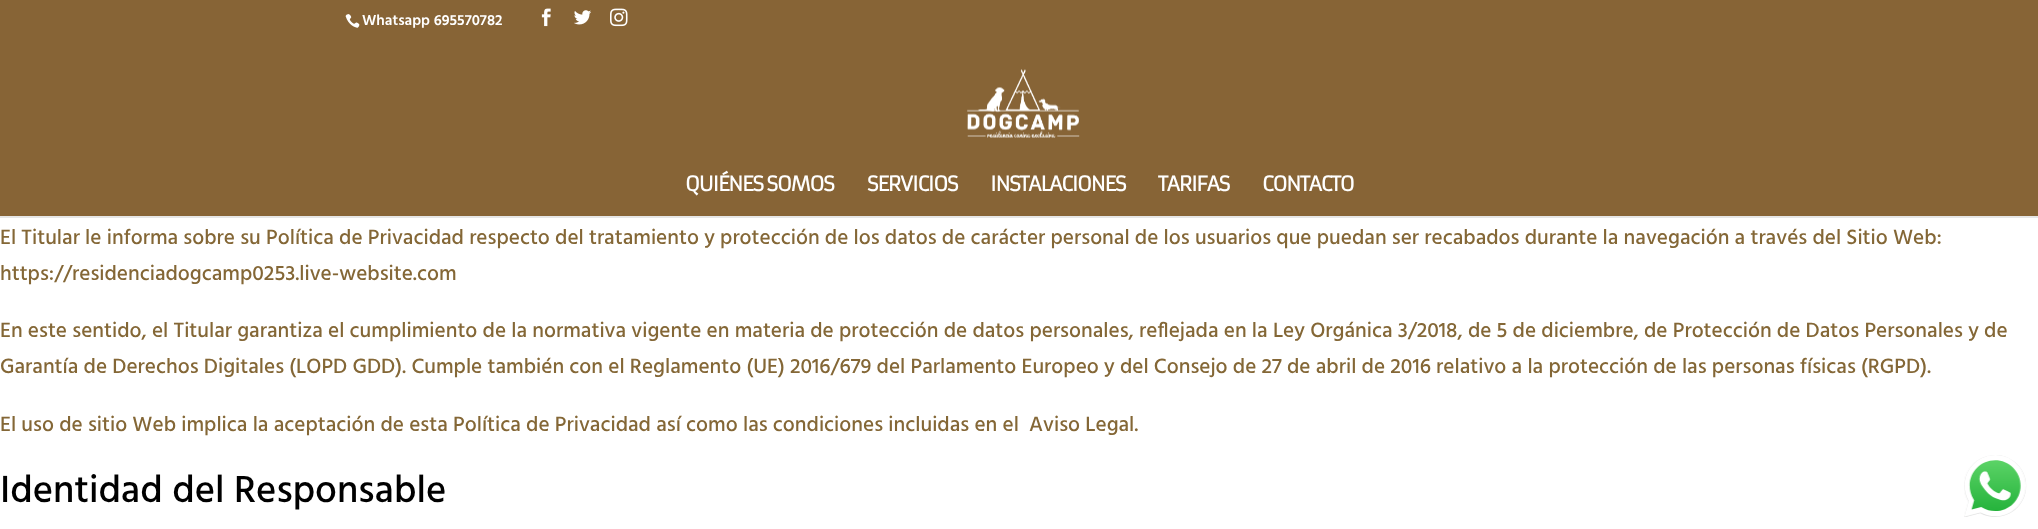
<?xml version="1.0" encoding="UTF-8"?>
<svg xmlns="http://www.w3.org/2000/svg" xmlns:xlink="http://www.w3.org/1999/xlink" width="2038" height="529">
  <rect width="100%" height="100%" fill="#ffffff" />
  <rect width="2038" height="216" fill="#876436" />
  <image x="345" y="14" width="15" height="14" xlink:href="image1.png" />
  <image x="541" y="8" width="10" height="19" xlink:href="image2.png" />
  <image x="574" y="10" width="17" height="15" xlink:href="image3.png" />
  <image x="610" y="8" width="18" height="19" xlink:href="image4.png" />
  <path d="M 0 216 v 2 h 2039 v -179 v 177 z" fill="#e6e6e6" />
  <image x="967" y="69" width="113" height="69" xlink:href="image5.png" />
  <image x="1964" y="455" width="63" height="62" xlink:href="image6.png" />
  <text x="362" y="25" style="font-family: Hind; font-size: 15px; font-weight: 600; fill: #ffffff">Whatsapp 695570782</text>
  <text x="685" y="191" style="font-family: Armata; font-size: 20px; font-weight: bold; letter-spacing: -1.25px; fill: #ffffff">QUIÉNES SOMOS</text>
  <text x="867" y="191" style="font-family: Armata; font-size: 20px; font-weight: bold; letter-spacing: -1.25px; fill: #ffffff">SERVICIOS</text>
  <text x="990" y="191" style="font-family: Armata; font-size: 20px; font-weight: bold; letter-spacing: -1.25px; fill: #ffffff">INSTALACIONES</text>
  <text x="1158" y="191" style="font-family: Armata; font-size: 20px; font-weight: bold; letter-spacing: -1.25px; fill: #ffffff">TARIFAS</text>
  <text x="1262" y="191" style="font-family: Armata; font-size: 20px; font-weight: bold; letter-spacing: -1.25px; fill: #ffffff">CONTACTO</text>
  <text x="0" y="244" style="font-family: Hind; font-size: 21.25px; font-weight: 500; fill: #846736">El Titular le informa sobre su Política de Privacidad respecto del tratamiento y protección de los datos de carácter personal de los usuarios que puedan ser recabados durante la navegación a través del Sitio Web:</text>
  <text x="0" y="280" style="font-family: Hind; font-size: 21.25px; font-weight: 500; fill: #846736">https://residenciadogcamp0253.live-website.com</text>
  <text x="0" y="337" style="font-family: Hind; font-size: 21.25px; font-weight: 500; fill: #846736">En este sentido, el Titular garantiza el cumplimiento de la normativa vigente en materia de protección de datos personales, reflejada en la Ley Orgánica 3/2018, de 5 de diciembre, de Protección de Datos Personales y de</text>
  <text x="0" y="373" style="font-family: Hind; font-size: 21.25px; font-weight: 500; fill: #846736">Garantía de Derechos Digitales (LOPD GDD). Cumple también con el Reglamento (UE) 2016/679 del Parlamento Europeo y del Consejo de 27 de abril de 2016 relativo a la protección de las personas físicas (RGPD).</text>
  <text x="0" y="431" style="font-family: Hind; font-size: 21.25px; font-weight: 500; fill: #846736">El uso de sitio Web implica la aceptación de esta Política de Privacidad así como las condiciones incluidas en el</text>
  <text x="1029" y="431" style="font-family: Hind; font-size: 21.25px; font-weight: 500; fill: #846736">Aviso Legal.</text>
  <text x="0" y="502" style="font-family: Hind; font-size: 38.75px; font-weight: 500; fill: #000000">Identidad del Responsable</text>
</svg>
